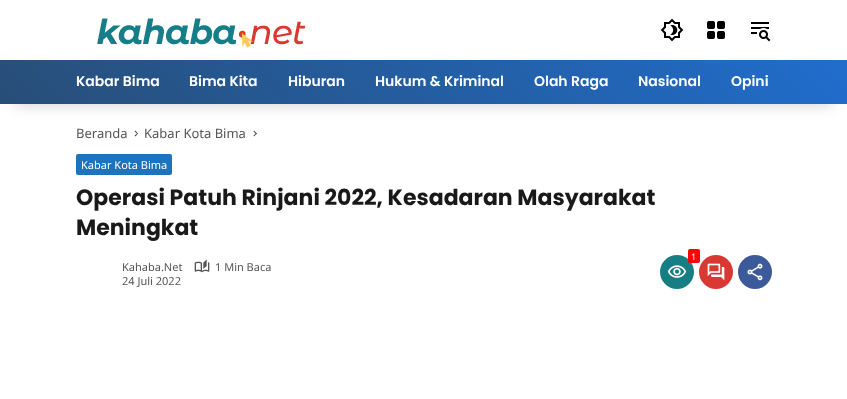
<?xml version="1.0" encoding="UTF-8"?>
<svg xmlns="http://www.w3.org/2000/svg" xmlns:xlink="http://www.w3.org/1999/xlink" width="847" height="399">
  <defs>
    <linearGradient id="g1" gradientUnits="userSpaceOnUse" x1="186" y1="303" x2="661" y2="-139"><stop offset="0" stop-color="#284e77" /><stop offset="1" stop-color="#206dcc" /></linearGradient>
  </defs>
  <rect width="100%" height="100%" fill="#ffffff" />
  <image x="97" y="18" width="209" height="30" xlink:href="image1.png" />
  <image x="660" y="18" width="24" height="24" xlink:href="image2.png" />
  <image x="707" y="21" width="18" height="18" xlink:href="image3.png" />
  <image x="751" y="22" width="20" height="20" xlink:href="image4.png" />
  <rect x="15" y="90" width="817" height="14" fill="#000000" fill-opacity="0.2" filter="blur(7.5px)" />
  <rect y="60" width="847" height="44" fill="url(#g1)" />
  <path d="M 134.5 131.5 l 1 -1 l 2.5 3 l -0.5 0.5 z" fill="#555555" />
  <path d="M 134.5 135.5 l 3 -2.5 l 0.5 0.5 l -2.5 3 z" fill="#555555" />
  <path d="M 253.5 131.5 l 0.5 -1 l 3 3 l -1 0.5 z" fill="#555555" />
  <path d="M 253.5 135.5 l 2.5 -2.5 l 1 0.5 l -3 3 z" fill="#555555" />
  <rect x="76" y="154" width="96" height="21" rx="2" fill="#1e73be" />
  <circle cx="677" cy="272" r="17" fill="#177f84" />
  <rect x="688" y="249" width="12" height="14" rx="2" fill="#ff0000" />
  <image x="667" y="265" width="20" height="13" xlink:href="image5.png" />
  <circle cx="716" cy="272" r="17" fill="#d93933" />
  <image x="707" y="263" width="18" height="18" xlink:href="image6.png" />
  <circle cx="755" cy="272" r="17" fill="#3c5a99" />
  <image x="747" y="263" width="16" height="18" xlink:href="image7.png" />
  <image x="194" y="259" width="16" height="14" xlink:href="image8.png" />
  <text x="76" y="86" style="font-family: Poppins; font-size: 14px; font-weight: 600; fill: #ffffff">Kabar Bima</text>
  <text x="189" y="86" style="font-family: Poppins; font-size: 14px; font-weight: 600; fill: #ffffff">Bima Kita</text>
  <text x="288" y="86" style="font-family: Poppins; font-size: 14px; font-weight: 600; fill: #ffffff">Hiburan</text>
  <text x="375" y="86" style="font-family: Poppins; font-size: 14px; font-weight: 600; fill: #ffffff">Hukum &amp; Kriminal</text>
  <text x="534" y="86" style="font-family: Poppins; font-size: 14px; font-weight: 600; fill: #ffffff">Olah Raga</text>
  <text x="638" y="86" style="font-family: Poppins; font-size: 14px; font-weight: 600; fill: #ffffff">Nasional</text>
  <text x="731" y="86" style="font-family: Poppins; font-size: 14px; font-weight: 600; fill: #ffffff">Opini</text>
  <text x="76" y="138" style="font-family: Noto Sans; font-size: 13px; fill: #555555">Beranda</text>
  <text x="144" y="138" style="font-family: Noto Sans; font-size: 13px; fill: #555555">Kabar Kota Bima</text>
  <text x="81" y="169" style="font-family: Noto Sans; font-size: 11px; fill: #ffffff">Kabar Kota Bima</text>
  <text x="76" y="205" style="font-family: Poppins; font-size: 22px; font-weight: bold; fill: #191919">Operasi Patuh Rinjani 2022, Kesadaran Masyarakat</text>
  <text x="76" y="235" style="font-family: Poppins; font-size: 22px; font-weight: bold; fill: #191919">Meningkat</text>
  <text x="691" y="260" style="font-family: Noto Sans; font-size: 9px; fill: #ffffff">1</text>
  <text x="122" y="271" style="font-family: Noto Sans; font-size: 11px; fill: #555555">Kahaba.Net</text>
  <text x="215" y="271" style="font-family: Noto Sans; font-size: 11px; fill: #555555">1 Min Baca</text>
  <text x="122" y="285" style="font-family: Noto Sans; font-size: 11px; fill: #555555">24 Juli 2022</text>
</svg>
